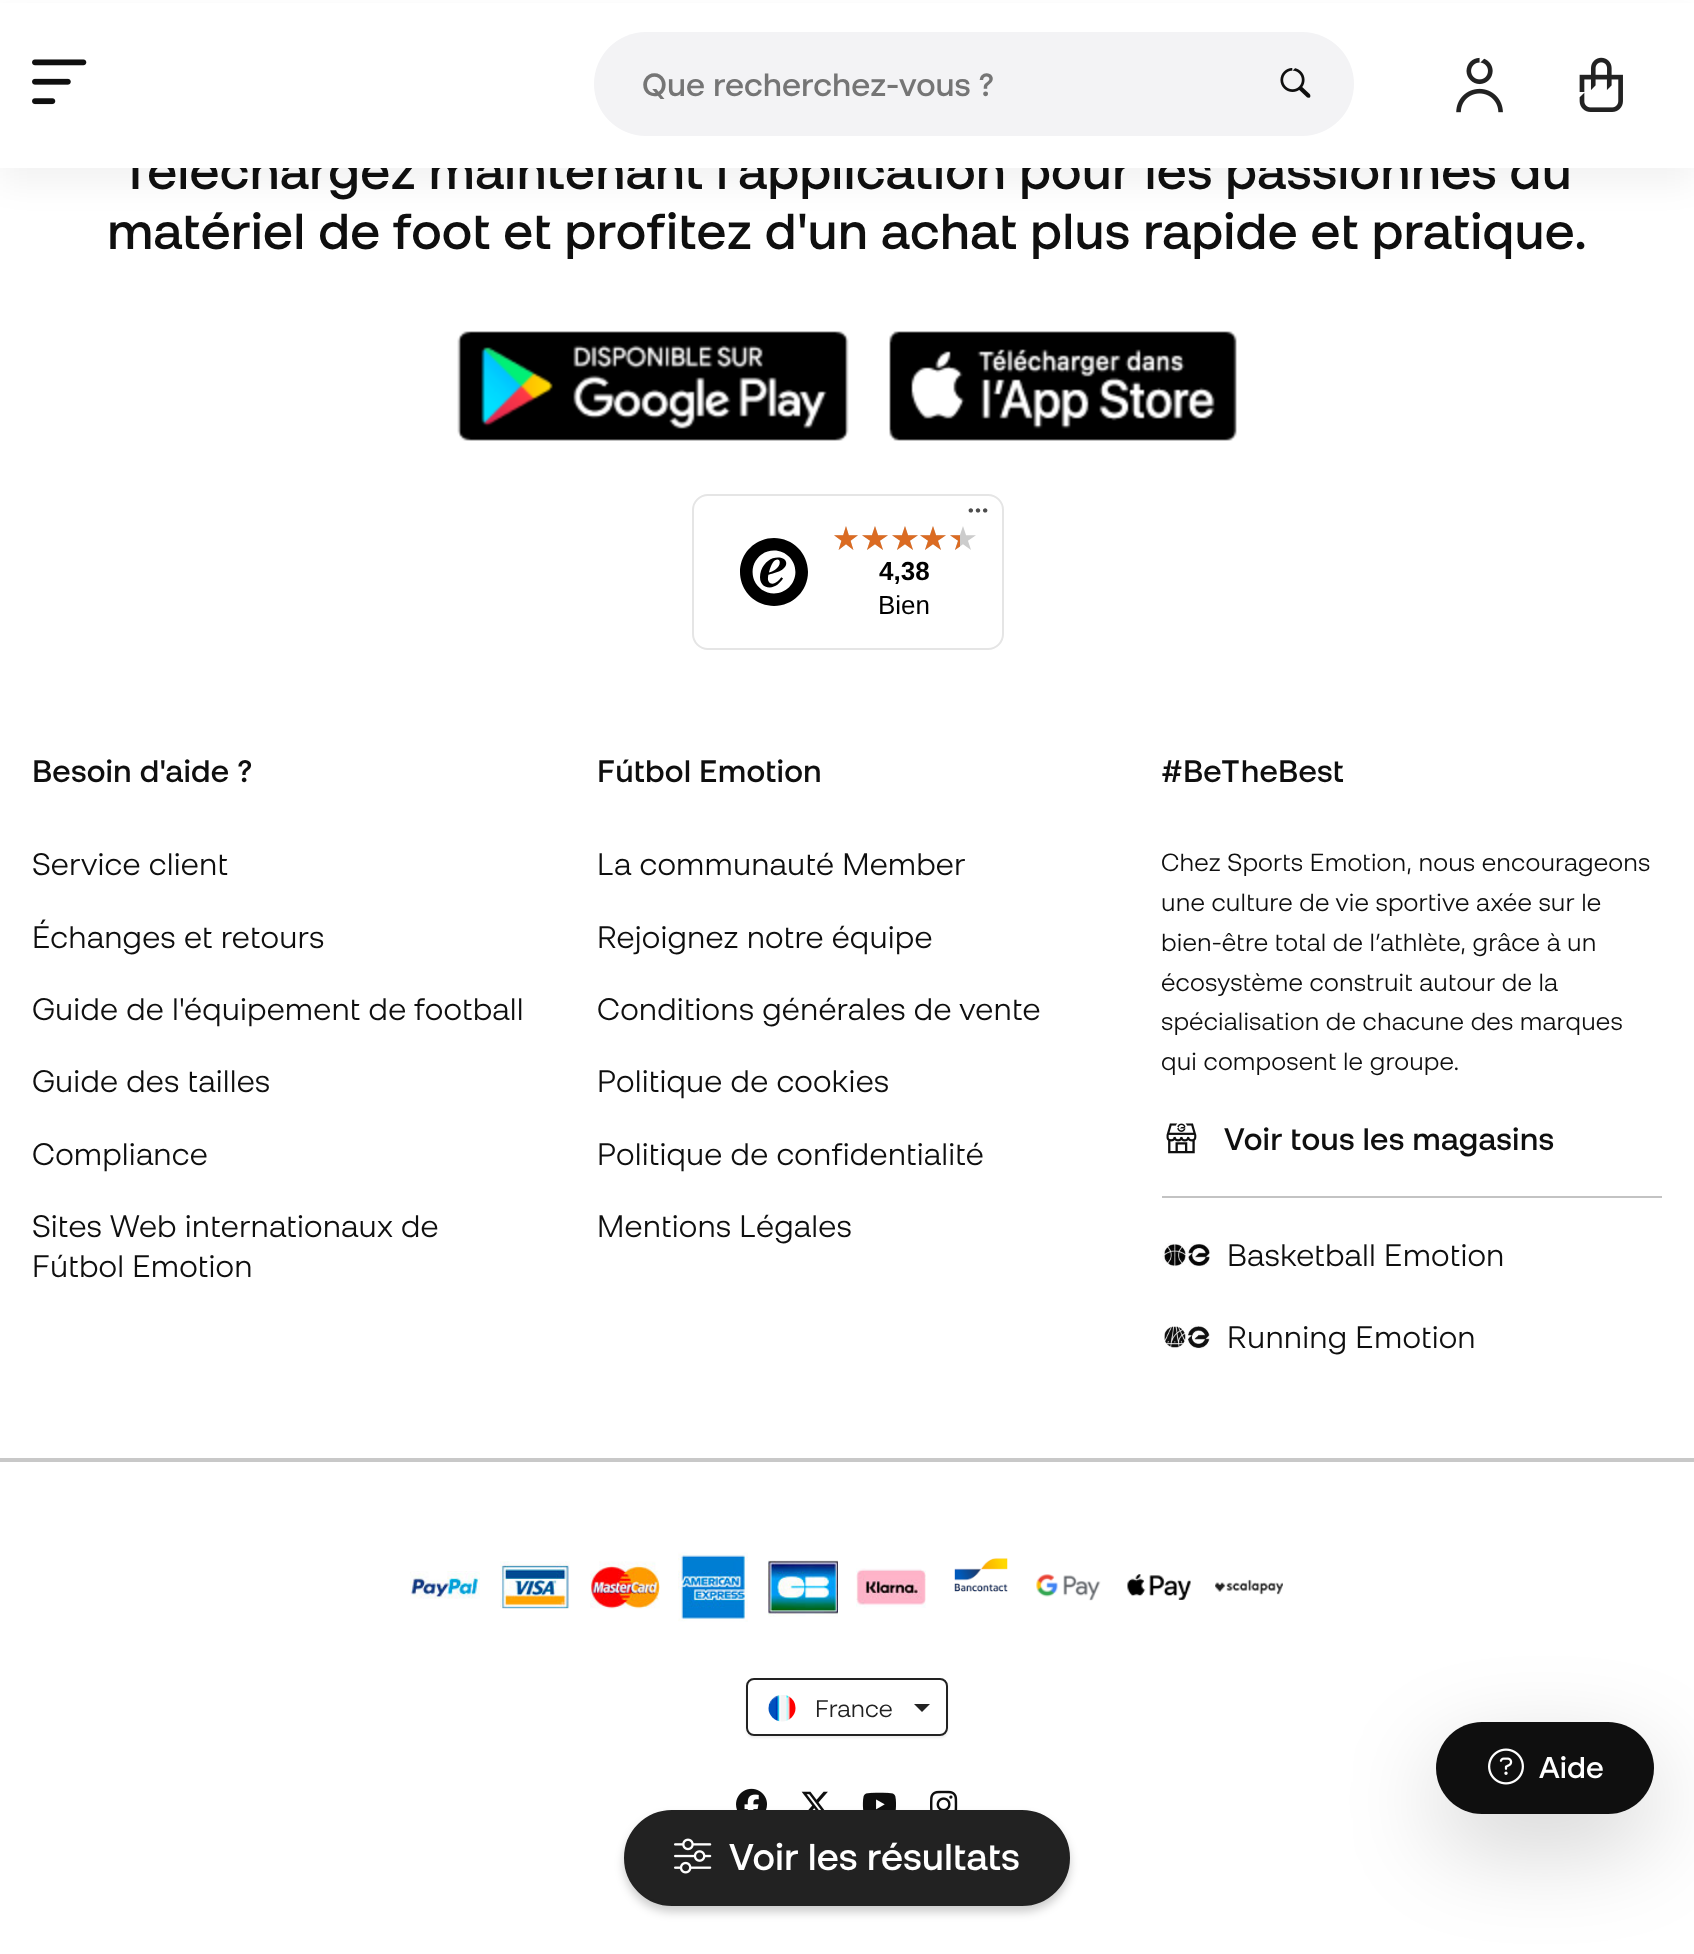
<?xml version="1.0" encoding="UTF-8"?>
<svg xmlns="http://www.w3.org/2000/svg" xmlns:xlink="http://www.w3.org/1999/xlink" width="1694" height="1954">
  <defs>
    <clipPath id="clip1"><path d="M 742 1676 h 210 v 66 h -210 z m 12 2 h 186 c 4.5 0 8 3.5 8 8 v 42 c 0 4.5 -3.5 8 -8 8 h -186 c -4.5 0 -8 -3.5 -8 -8 v -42 c 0 -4.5 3.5 -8 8 -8 z" clip-rule="evenodd" /></clipPath>
  </defs>
  <rect width="100%" height="100%" fill="#ffffff" />
  <rect y="16" width="1694" height="168" fill="#000000" fill-opacity="0.05" filter="blur(16px)" />
  <image x="457" y="331" width="392" height="110" xlink:href="image5.png" />
  <image x="889" y="331" width="348" height="110" xlink:href="image6.png" />
  <rect x="693" y="495" width="310" height="154" rx="15" fill="none" stroke="#e5e5e5" stroke-width="2" />
  <image x="968" y="508" width="20" height="5" xlink:href="image7.png" />
  <image x="740" y="538" width="68" height="68" xlink:href="image8.png" />
  <image x="834" y="526" width="24" height="24" xlink:href="image9.png" />
  <image x="862" y="526" width="26" height="24" xlink:href="image10.png" />
  <image x="892" y="526" width="26" height="24" xlink:href="image10.png" />
  <image x="920" y="526" width="26" height="24" xlink:href="image10.png" />
  <image x="950" y="526" width="26" height="24" xlink:href="image10.png" />
  <image x="834" y="526" width="24" height="24" xlink:href="image11.png" />
  <image x="862" y="526" width="26" height="24" xlink:href="image12.png" />
  <image x="892" y="526" width="26" height="24" xlink:href="image12.png" />
  <image x="920" y="526" width="26" height="24" xlink:href="image12.png" />
  <image x="950" y="535" width="10" height="15" xlink:href="image13.png" />
  <image x="1166" y="1123" width="31" height="31" xlink:href="image14.png" />
  <rect x="1162" y="1196" width="500" height="2" fill="#c3c3c3" />
  <image x="1162" y="1243" width="48" height="24" xlink:href="image15.png" />
  <image x="1164" y="1325" width="46" height="24" xlink:href="image16.png" />
  <rect y="1458" width="1694" height="4" fill="#c8c8c8" />
  <image x="410" y="1571" width="70" height="28" xlink:href="image17.png" />
  <image x="500" y="1561" width="70" height="48" xlink:href="image18.png" />
  <image x="590" y="1561" width="70" height="48" xlink:href="image19.png" />
  <image x="678" y="1552" width="70" height="70" xlink:href="image20.png" />
  <image x="768" y="1560" width="70" height="57" xlink:href="image21.png" />
  <image x="856" y="1568" width="70" height="40" xlink:href="image22.png" />
  <image x="954" y="1558" width="54" height="34" xlink:href="image23.png" />
  <image x="1036" y="1574" width="65" height="27" xlink:href="image24.png" />
  <image x="1127" y="1574" width="64" height="26" xlink:href="image25.png" />
  <image x="1215" y="1579" width="68" height="16" xlink:href="image26.png" />
  <g clip-path="url(#clip1)">
    <rect x="746" y="1680" width="202" height="58" rx="8" fill="#000000" fill-opacity="0.07" filter="blur(1px)" />
  </g>
  <rect x="747" y="1679" width="200" height="56" rx="7" fill="none" stroke="#222222" stroke-width="2" />
  <image x="768" y="1695" width="28" height="27" xlink:href="image27.png" />
  <path d="M 914 1704 h 16 l -8 8 z" fill="#222222" />
  <image x="736" y="1788" width="31" height="22" xlink:href="image28.png" />
  <image x="801" y="1791" width="27" height="19" xlink:href="image29.png" />
  <image x="862" y="1792" width="34" height="18" xlink:href="image30.png" />
  <image x="930" y="1790" width="28" height="20" xlink:href="image31.png" />
  <rect x="1436" y="1754" width="218" height="92" rx="46" fill="#000000" fill-opacity="0.18" filter="blur(48px)" />
  <rect x="1436" y="1722" width="218" height="92" rx="46" fill="#0f0f0f" />
  <image x="1488" y="1748" width="36" height="37" xlink:href="image32.png" />
  <rect x="624" y="1816" width="446" height="96" rx="48" fill="#000000" fill-opacity="0.2" filter="blur(5px)" />
  <rect x="625" y="1811" width="444" height="94" rx="47" fill="#222222" stroke="#222222" stroke-width="2" />
  <image x="674" y="1838" width="38" height="36" xlink:href="image33.png" />
  <text x="121" y="189" style="font-family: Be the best; font-size: 50.5px; font-weight: 600; letter-spacing: 0.15px; fill: #0f0f0f">Téléchargez maintenant l'application pour les passionnés du</text>
  <rect y="3" width="1694" height="165" fill="#ffffff" />
  <rect x="594" y="32" width="760" height="104" rx="52" fill="#f3f3f5" />
  <image x="1280" y="68" width="31" height="30" xlink:href="image2.png" />
  <text x="642" y="96" style="font-family: Be the best; font-size: 32px; font-weight: 600; fill: #757575">Que recherchez-vous ?</text>
  <image x="1579" y="57" width="44" height="55" xlink:href="image4.png" />
  <image x="1456" y="57" width="47" height="56" xlink:href="image3.png" />
  <image x="32" y="59" width="55" height="46" xlink:href="image1.png" />
  <text x="107" y="249" style="font-family: Be the best; font-size: 50.5px; font-weight: 600; letter-spacing: 0.15px; fill: #0f0f0f">matériel de foot et profitez d'un achat plus rapide et pratique.</text>
  <text x="879" y="580" style="font-family: Liberation Sans; font-size: 26px; font-weight: bold; fill: #000000">4,38</text>
  <text x="878" y="614" style="font-family: Liberation Sans; font-size: 26px; fill: #000000">Bien</text>
  <text x="32" y="782" style="font-family: Be the best; font-size: 31px; font-weight: 600; letter-spacing: 0.15px; fill: #0f0f0f">Besoin d'aide ?</text>
  <text x="32" y="875" style="font-family: Be the best; font-size: 31px; letter-spacing: 0.15px; fill: #0f0f0f">Service client</text>
  <text x="32" y="948" style="font-family: Be the best; font-size: 31px; letter-spacing: 0.15px; fill: #0f0f0f">Échanges et retours</text>
  <text x="32" y="1020" style="font-family: Be the best; font-size: 31px; letter-spacing: 0.15px; fill: #0f0f0f">Guide de l'équipement de football</text>
  <text x="32" y="1092" style="font-family: Be the best; font-size: 31px; letter-spacing: 0.15px; fill: #0f0f0f">Guide des tailles</text>
  <text x="32" y="1165" style="font-family: Be the best; font-size: 31px; letter-spacing: 0.15px; fill: #0f0f0f">Compliance</text>
  <text x="32" y="1237" style="font-family: Be the best; font-size: 31px; letter-spacing: 0.15px; fill: #0f0f0f">Sites Web internationaux de</text>
  <text x="32" y="1277" style="font-family: Be the best; font-size: 31px; letter-spacing: 0.15px; fill: #0f0f0f">Fútbol Emotion</text>
  <text x="597" y="782" style="font-family: Be the best; font-size: 31px; font-weight: 600; letter-spacing: 0.15px; fill: #0f0f0f">Fútbol Emotion</text>
  <text x="597" y="875" style="font-family: Be the best; font-size: 31px; letter-spacing: 0.15px; fill: #0f0f0f">La communauté Member</text>
  <text x="597" y="948" style="font-family: Be the best; font-size: 31px; letter-spacing: 0.15px; fill: #0f0f0f">Rejoignez notre équipe</text>
  <text x="597" y="1020" style="font-family: Be the best; font-size: 31px; letter-spacing: 0.15px; fill: #0f0f0f">Conditions générales de vente</text>
  <text x="597" y="1092" style="font-family: Be the best; font-size: 31px; letter-spacing: 0.15px; fill: #0f0f0f">Politique de cookies</text>
  <text x="597" y="1165" style="font-family: Be the best; font-size: 31px; letter-spacing: 0.15px; fill: #0f0f0f">Politique de confidentialité</text>
  <text x="597" y="1237" style="font-family: Be the best; font-size: 31px; letter-spacing: 0.15px; fill: #0f0f0f">Mentions Légales</text>
  <text x="1161" y="782" style="font-family: Be the best; font-size: 31px; font-weight: 600; letter-spacing: 0.15px; fill: #0f0f0f">#BeTheBest</text>
  <text x="1161" y="871" style="font-family: Be the best; font-size: 24.8px; letter-spacing: 0.15px; fill: #0f0f0f">Chez Sports Emotion, nous encourageons</text>
  <text x="1161" y="911" style="font-family: Be the best; font-size: 24.8px; letter-spacing: 0.15px; fill: #0f0f0f">une culture de vie sportive axée sur le</text>
  <text x="1161" y="951" style="font-family: Be the best; font-size: 24.8px; letter-spacing: 0.15px; fill: #0f0f0f">bien-être total de l’athlète, grâce à un</text>
  <text x="1161" y="991" style="font-family: Be the best; font-size: 24.8px; letter-spacing: 0.15px; fill: #0f0f0f">écosystème construit autour de la</text>
  <text x="1161" y="1030" style="font-family: Be the best; font-size: 24.8px; letter-spacing: 0.15px; fill: #0f0f0f">spécialisation de chacune des marques</text>
  <text x="1161" y="1070" style="font-family: Be the best; font-size: 24.8px; letter-spacing: 0.15px; fill: #0f0f0f">qui composent le groupe.</text>
  <text x="1224" y="1150" style="font-family: Be the best; font-size: 31px; font-weight: 600; letter-spacing: 0.15px; fill: #0f0f0f">Voir tous les magasins</text>
  <text x="1227" y="1266" style="font-family: Be the best; font-size: 31px; letter-spacing: 0.15px; fill: #0f0f0f">Basketball Emotion</text>
  <text x="1227" y="1348" style="font-family: Be the best; font-size: 31px; letter-spacing: 0.15px; fill: #0f0f0f">Running Emotion</text>
  <text x="815" y="1717" style="font-family: Be the best; font-size: 24px; fill: #222222">France</text>
  <text x="1539" y="1778" style="font-family: Be the best; font-size: 30px; font-weight: 600; fill: #ffffff">Aide</text>
  <text x="729" y="1870" style="font-family: Be the best; font-size: 37.25px; font-weight: 600; fill: #ffffff">Voir les résultats</text>
</svg>
